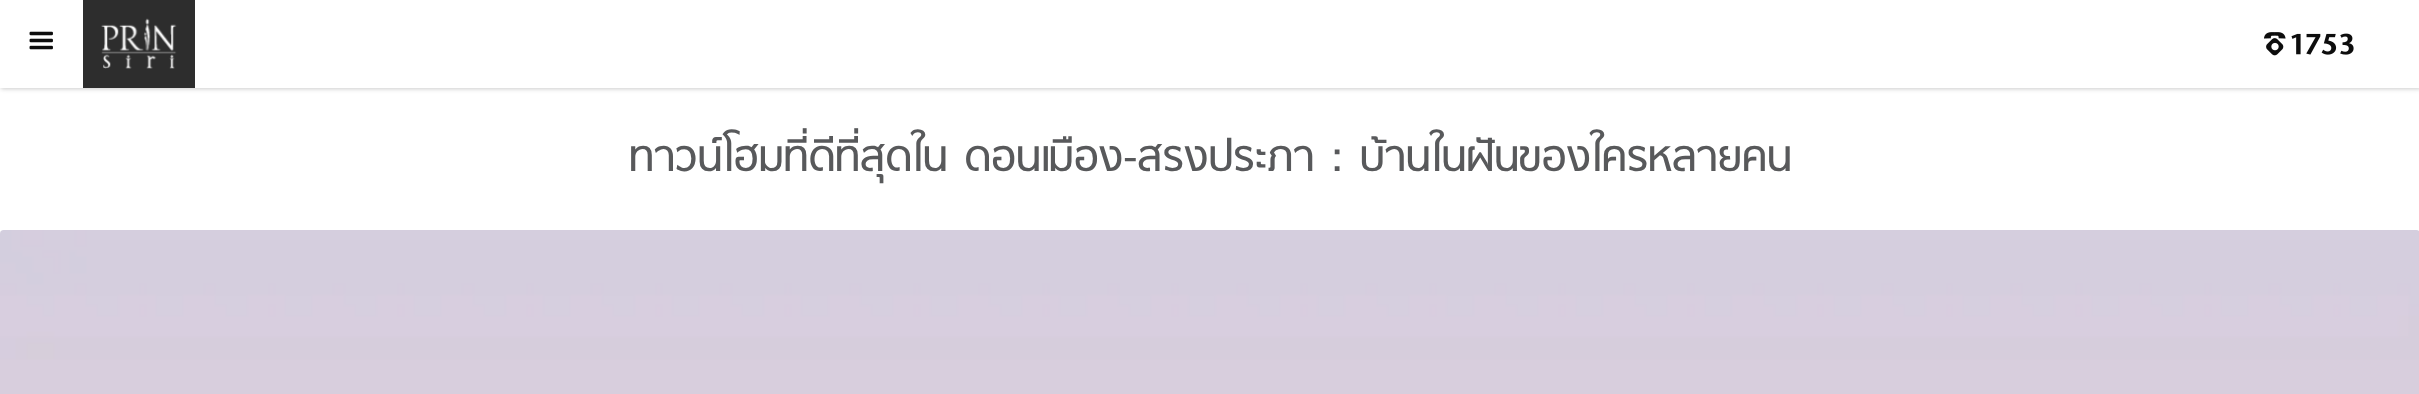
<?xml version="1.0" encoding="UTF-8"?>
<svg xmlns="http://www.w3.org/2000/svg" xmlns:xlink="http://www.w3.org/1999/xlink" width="2419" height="394">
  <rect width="100%" height="100%" fill="#ffffff" />
  <rect x="1" y="1" width="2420" height="88" fill="#000000" fill-opacity="0.2" filter="blur(2px)" />
  <rect width="2419" height="88" fill="#ffffff" />
  <image x="29" y="31" width="24" height="19" xlink:href="image1.png" />
  <rect x="83" width="112" height="88" fill="#2d2d2d" />
  <image x="101" y="18" width="76" height="51" xlink:href="image2.png" />
  <image x="2264" y="32" width="90" height="24" xlink:href="image3.png" />
  <image x="0" y="230" width="2419" height="164" xlink:href="image4.png" />
  <text x="629" y="171" style="font-family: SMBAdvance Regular; font-size: 62.5px; fill: #58595b">ทาวน์โฮมที่ดีที่สุดใน ดอนเมือง-สรงประภา : บ้านในฝันของใครหลายคน</text>
</svg>
